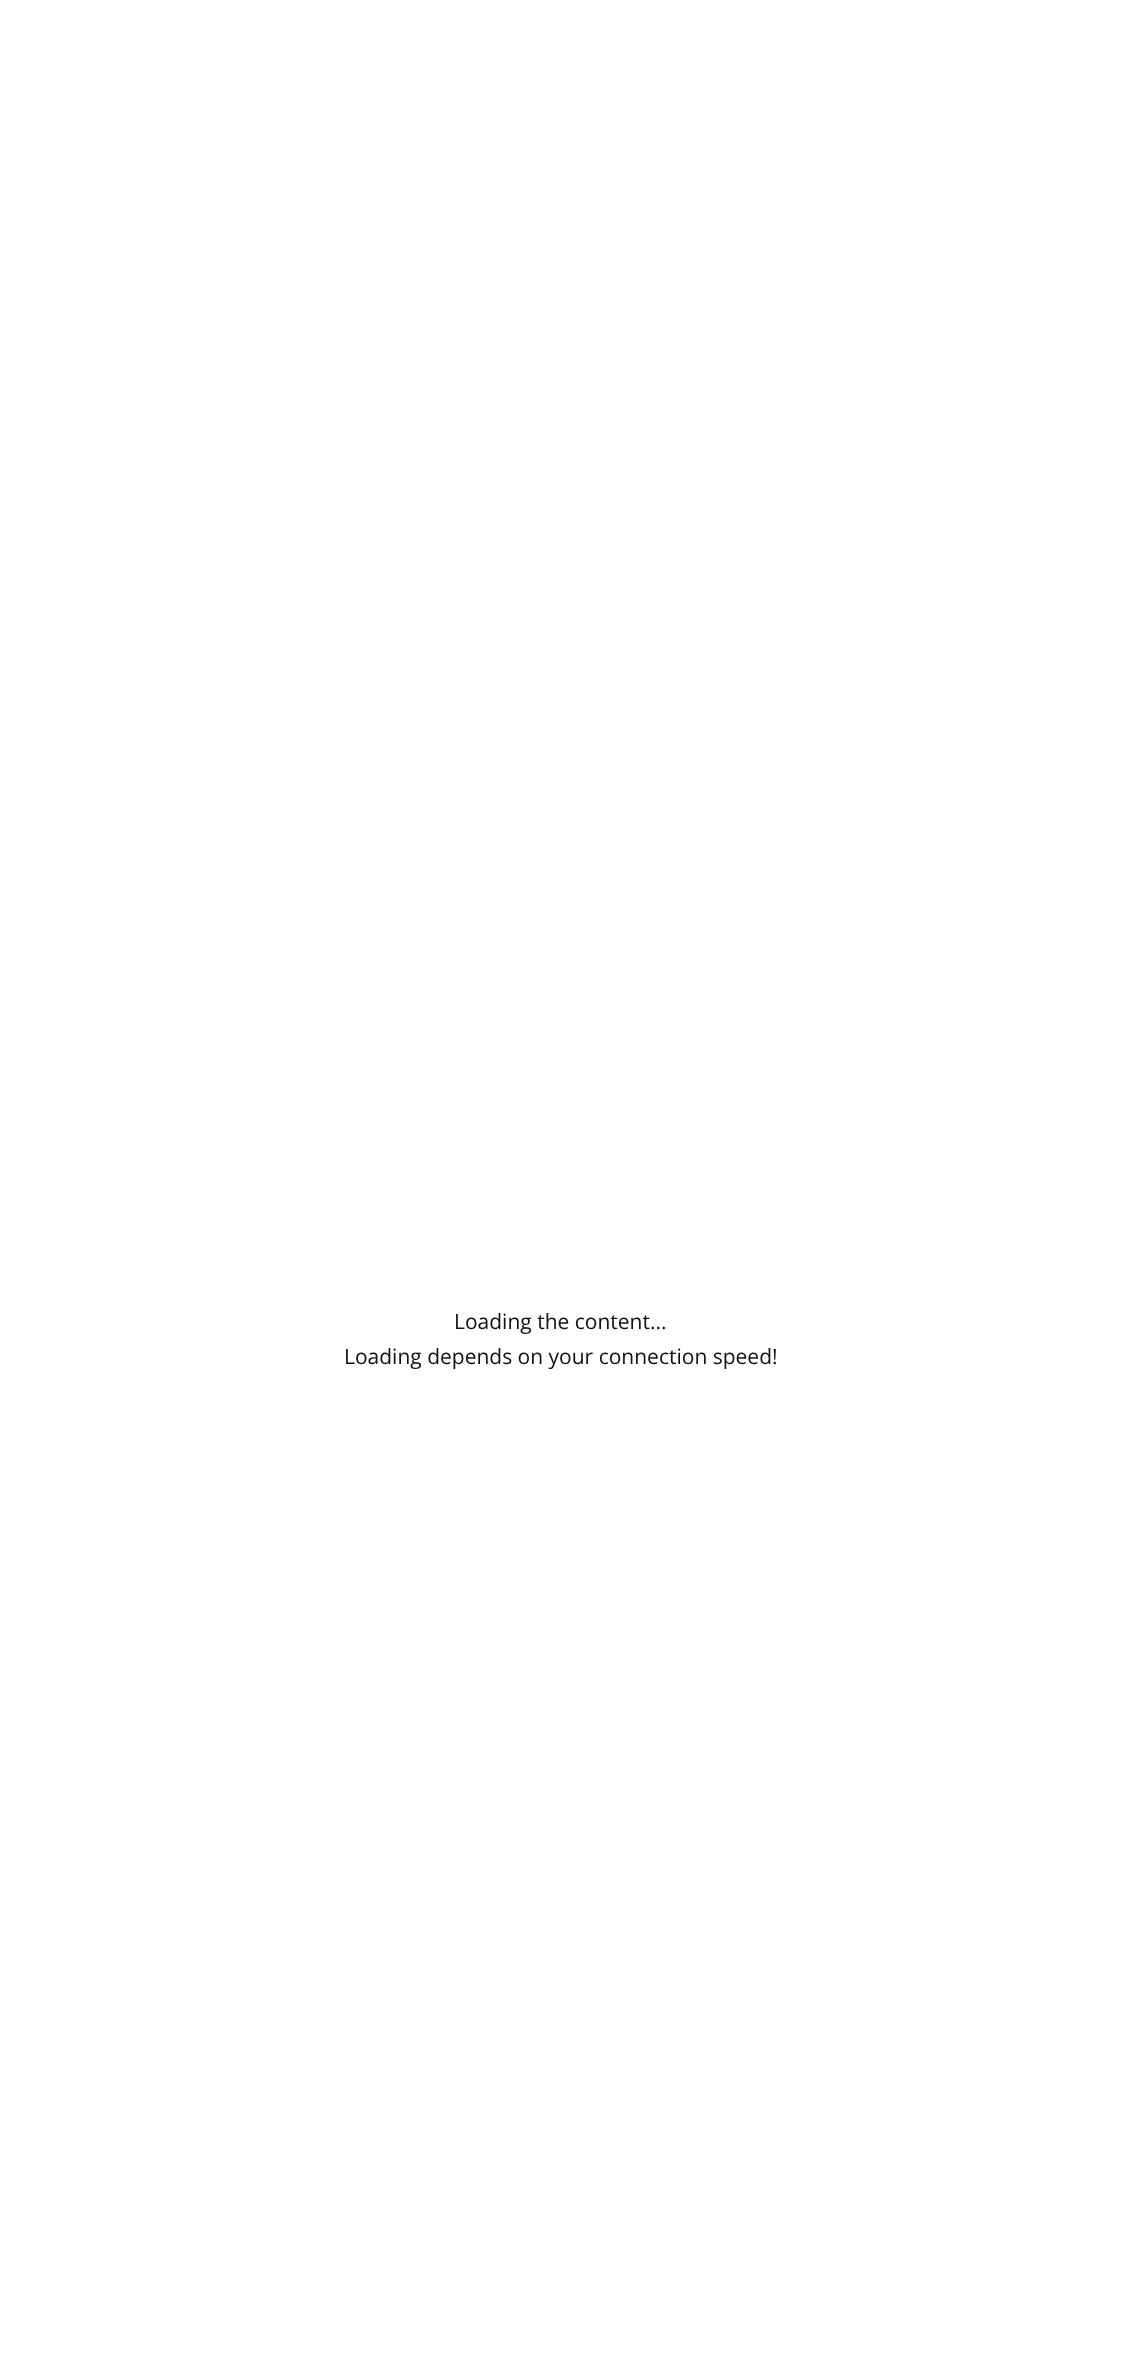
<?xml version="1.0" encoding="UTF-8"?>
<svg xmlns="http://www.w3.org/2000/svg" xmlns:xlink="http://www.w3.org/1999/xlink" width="1124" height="2363">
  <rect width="100%" height="100%" fill="#ffffff" />
  <text x="454" y="1329" style="font-family: Open Sans; font-size: 21px; fill: #111111">Loading the content...</text>
  <text x="344" y="1364" style="font-family: Open Sans; font-size: 21px; fill: #111111">Loading depends on your connection speed!</text>
</svg>
